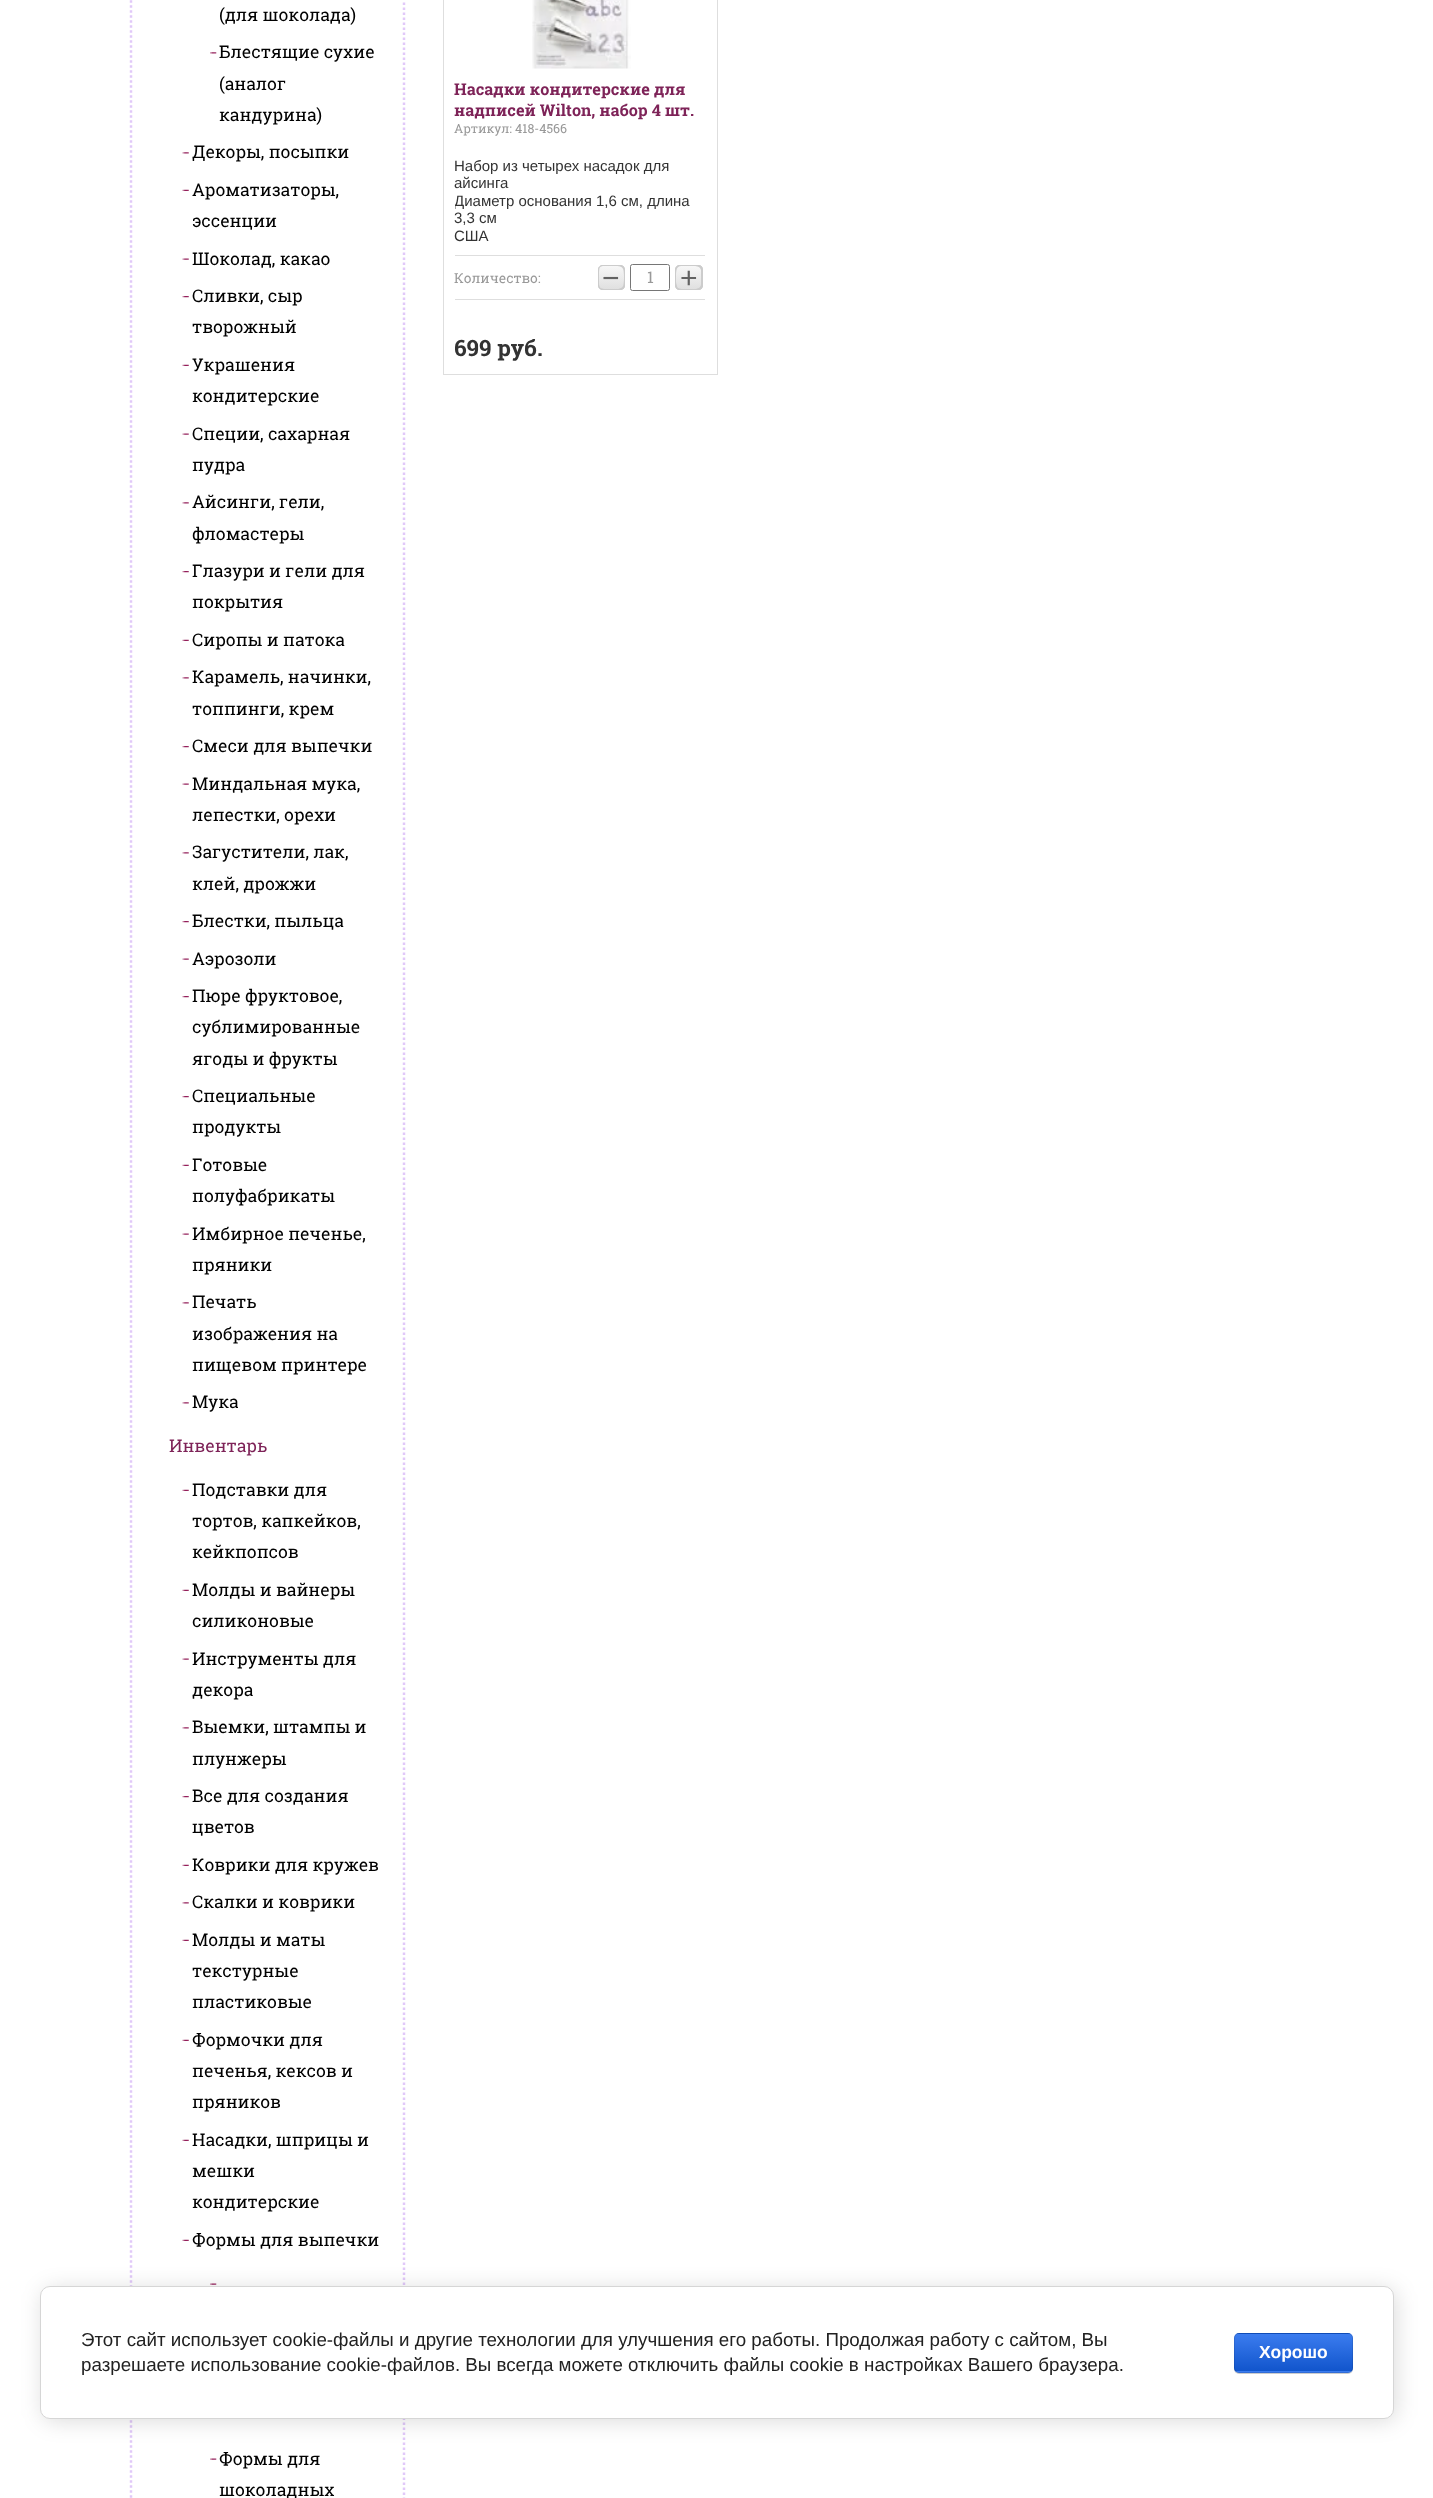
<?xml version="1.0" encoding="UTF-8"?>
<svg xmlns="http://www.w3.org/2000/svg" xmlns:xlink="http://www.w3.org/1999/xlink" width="1433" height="2498">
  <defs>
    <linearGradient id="g1" gradientUnits="userSpaceOnUse" x1="611" y1="265" x2="611" y2="290"><stop offset="0" stop-color="#f8f8f8" /><stop offset="1" stop-color="#dfdfdf" /></linearGradient>
    <linearGradient id="g2" gradientUnits="userSpaceOnUse" x1="689" y1="265" x2="689" y2="290"><stop offset="0" stop-color="#f8f8f8" /><stop offset="1" stop-color="#dfdfdf" /></linearGradient>
    <clipPath id="clip1"><rect x="1234" y="2333" width="119" height="40" rx="5" /></clipPath>
    <linearGradient id="g3" gradientUnits="userSpaceOnUse" x1="1293" y1="2296" x2="1293" y2="2334"><stop offset="0" stop-color="#3b7cef" /><stop offset="1" stop-color="#1155cc" /></linearGradient>
    <linearGradient id="g4" gradientUnits="userSpaceOnUse" x1="1293" y1="2334" x2="1293" y2="2371"><stop offset="0" stop-color="#3b7cef" /><stop offset="1" stop-color="#1155cc" /></linearGradient>
    <linearGradient id="g5" gradientUnits="userSpaceOnUse" x1="1293" y1="2371" x2="1293" y2="2409"><stop offset="0" stop-color="#3b7cef" /><stop offset="1" stop-color="#1155cc" /></linearGradient>
    <clipPath id="clip2"><rect x="455" y="148" width="250" height="107" /></clipPath>
  </defs>
  <rect width="100%" height="100%" fill="#ffffff" />
  <path d="M 140 -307.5 h 255 c 5 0 9 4 9 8.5 v 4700 c 0 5 -4 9 -9 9 h -255 c -5 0 -9 -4 -9 -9 v -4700 c 0 -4.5 4 -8.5 9 -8.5 z" fill="none" stroke="#e1c9f9" stroke-width="2.5" stroke-dasharray="2.5 2.5" />
  <image x="210" y="52" width="7" height="2" xlink:href="image1.png" />
  <image x="182" y="152" width="7" height="2" xlink:href="image2.png" />
  <image x="182" y="189" width="7" height="2" xlink:href="image3.png" />
  <image x="182" y="258" width="7" height="2" xlink:href="image4.png" />
  <image x="182" y="296" width="7" height="2" xlink:href="image5.png" />
  <image x="182" y="364" width="7" height="2" xlink:href="image3.png" />
  <image x="182" y="433" width="7" height="2" xlink:href="image4.png" />
  <image x="182" y="502" width="7" height="2" xlink:href="image2.png" />
  <image x="182" y="571" width="7" height="2" xlink:href="image5.png" />
  <image x="182" y="639" width="7" height="2" xlink:href="image3.png" />
  <image x="182" y="677" width="7" height="2" xlink:href="image2.png" />
  <image x="182" y="746" width="7" height="2" xlink:href="image5.png" />
  <image x="182" y="783" width="7" height="2" xlink:href="image4.png" />
  <image x="182" y="852" width="7" height="2" xlink:href="image2.png" />
  <image x="182" y="921" width="7" height="2" xlink:href="image5.png" />
  <image x="182" y="958" width="7" height="2" xlink:href="image4.png" />
  <image x="182" y="996" width="7" height="2" xlink:href="image5.png" />
  <image x="182" y="1096" width="7" height="2" xlink:href="image5.png" />
  <image x="182" y="1164" width="7" height="2" xlink:href="image3.png" />
  <image x="182" y="1233" width="7" height="2" xlink:href="image4.png" />
  <image x="182" y="1302" width="7" height="2" xlink:href="image2.png" />
  <image x="182" y="1402" width="7" height="2" xlink:href="image2.png" />
  <image x="182" y="1489" width="7" height="2" xlink:href="image3.png" />
  <image x="182" y="1589" width="7" height="2" xlink:href="image3.png" />
  <image x="182" y="1658" width="7" height="2" xlink:href="image4.png" />
  <image x="182" y="1727" width="7" height="2" xlink:href="image2.png" />
  <image x="182" y="1796" width="7" height="2" xlink:href="image5.png" />
  <image x="182" y="1864" width="7" height="2" xlink:href="image3.png" />
  <image x="182" y="1902" width="7" height="2" xlink:href="image2.png" />
  <image x="182" y="1939" width="7" height="2" xlink:href="image3.png" />
  <image x="182" y="2039" width="7" height="2" xlink:href="image3.png" />
  <image x="182" y="2139" width="7" height="2" xlink:href="image3.png" />
  <image x="182" y="2239" width="7" height="2" xlink:href="image3.png" />
  <image x="210" y="2283" width="7" height="2" xlink:href="image6.png" />
  <image x="210" y="2458" width="7" height="2" xlink:href="image6.png" />
  <rect x="443.5" y="-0.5" width="274" height="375" fill="none" stroke="#dedede" />
  <image x="532" y="0" width="99" height="69" xlink:href="image7.png" />
  <rect x="455" y="255" width="250" height="1" fill="#dedede" />
  <rect x="598" y="265" width="27" height="25" rx="5" fill="url(#g1)" />
  <path d="M 599.5 266.5 c -1 1 -1.5 2 -1.5 3.5 v 15 c 0 3 2 5 5 5 h 17 c 2 0 3.5 -1 4.5 -2.5 c -3.5 2.5 -10 1.5 -13.5 1.5 c -3 0 -6 0.5 -9 -0.5 l -1.5 -0.5 c -1 -1 -1.5 -3 -1.5 -4.5 v -7.5 l -0.5 -6 z" fill="#cccccc" />
  <path d="M 601 266 c 4.5 0 18 -1 21 1.5 c 1 1 1.5 2 1.5 3 c 0.5 2 1 13 0.5 15.5 c -0.5 1.5 -0.5 2.5 -1.5 3.5 c 1.5 -1 2.5 -2.5 2.5 -4.5 v -15 c 0 -3 -2 -5 -5 -5 h -17 c -1 0 -2.5 0.5 -3 1 z" fill="#cccccc" />
  <path d="M 600 289 c 0.5 0.5 2 1 3 1 h 17 c 3 0 5 -2 5 -5 v -15 c 0 -2 -1 -3.5 -2.5 -4.5 c 1 1 1 2 1.5 3.5 c 0.5 2.5 0 13.5 -0.5 15.5 c 0 1 -0.5 2 -1.5 3 c -1 0.5 -2 1 -3.5 1.5 z" fill="#cccccc" />
  <path d="M 604 266 h 14 c 3 0 5 0.5 6.5 1.5 c -1 -1.5 -2.5 -2.5 -4.5 -2.5 h -17 c -3 0 -5 2 -5 5 v 15 c 0 1.5 0.5 2.5 1.5 3.5 l -1 -3.5 l 0.5 -6 v -7.5 l 0.5 -3.5 c 1 -1.5 2.5 -2 4.5 -2 z" fill="#cccccc" />
  <rect x="630.5" y="264.5" width="39" height="26" rx="2" fill="none" stroke="#767676" />
  <rect x="675" y="265" width="28" height="25" rx="5" fill="url(#g2)" />
  <path d="M 677.5 266 c -1.5 0.5 -2.5 2 -2.5 4 v 15 c 0 3 2 5 5 5 h 18 c 2 0 4 -1.5 4.5 -3 c -0.5 1 -2 1.5 -3 1.5 c -2.5 1 -18.5 1 -20 0 l -1.5 -0.5 c -1.5 -1.5 -1.5 -3.5 -2 -5 v -13 c 0 -1.5 0.5 -3 1.5 -4 z" fill="#cccccc" />
  <path d="M 679 266 c 4.5 0 17.5 -1 20.5 1.5 c 0.5 0.5 1 1.5 1.5 2.5 c 0 1 0.5 15.5 0 17 c 0 1 -0.5 2 -1.5 3 c 2 -0.5 3.5 -2.5 3.5 -5 v -15 c 0 -3 -2 -5 -5 -5 h -18 c -1.5 0 -3 0.5 -3.5 1.5 z" fill="#cccccc" />
  <path d="M 676.5 288.5 c 0.5 1 2 1.5 3.5 1.5 h 18 c 3 0 5 -2 5 -5 v -15 c 0 -2.5 -1.5 -4.5 -3.5 -5 c 1 1 1.5 2 1.5 3 c 0.5 1.5 0 16 0 17 c -0.5 1 -1 2 -1.5 2.5 c -3 2.5 -8 1.5 -11 1.5 c -3 0 -10 0.5 -12 -0.5 z" fill="#cccccc" />
  <path d="M 681 266 h 15 c 3.5 0 5.5 1 6.5 2 c -0.5 -1.5 -2.5 -3 -4.5 -3 h -18 c -3 0 -5 2 -5 5 v 15 c 0 2 1 3.5 2.5 4 c -2 -2.5 -2 -18 -0.5 -20.5 c 1 -1.5 2 -2.5 4 -2.5 z" fill="#cccccc" />
  <rect x="455" y="299" width="250" height="1" fill="#dedede" />
  <rect x="43" y="2289" width="1353" height="132" rx="10" fill="#000000" fill-opacity="0.14" filter="blur(11px)" />
  <rect x="40.5" y="2286.5" width="1353" height="132" rx="9.5" fill="#ffffff" stroke="#d6d6d6" />
  <rect x="1234" y="2334" width="119" height="40" rx="5" fill="#000000" fill-opacity="0.2" filter="blur(0.5px)" />
  <g clip-path="url(#clip1)">
    <rect x="1234" y="2333" width="119" height="1" fill="url(#g3)" />
    <rect x="1234" y="2334" width="119" height="37" fill="url(#g4)" />
    <rect x="1234" y="2371" width="119" height="2" fill="url(#g5)" />
  </g>
  <rect x="1234.5" y="2333.5" width="118" height="39" rx="4.5" fill="none" stroke="#000000" stroke-opacity="0.1" />
  <text x="219" y="21" style="font-family: Roboto Slab; font-size: 17.5px; fill: #010101">(для шоколада)</text>
  <text x="219" y="58" style="font-family: Roboto Slab; font-size: 17.5px; fill: #010101">Блестящие сухие</text>
  <text x="219" y="90" style="font-family: Roboto Slab; font-size: 17.5px; fill: #010101">(аналог</text>
  <text x="219" y="121" style="font-family: Roboto Slab; font-size: 17.5px; fill: #010101">кандурина)</text>
  <text x="192" y="158" style="font-family: Roboto Slab; font-size: 17.5px; fill: #010101">Декоры, посыпки</text>
  <text x="192" y="196" style="font-family: Roboto Slab; font-size: 17.5px; fill: #010101">Ароматизаторы,</text>
  <text x="192" y="227" style="font-family: Roboto Slab; font-size: 17.5px; fill: #010101">эссенции</text>
  <text x="192" y="265" style="font-family: Roboto Slab; font-size: 17.5px; fill: #010101">Шоколад, какао</text>
  <text x="192" y="302" style="font-family: Roboto Slab; font-size: 17.5px; fill: #010101">Сливки, сыр</text>
  <text x="192" y="333" style="font-family: Roboto Slab; font-size: 17.5px; fill: #010101">творожный</text>
  <text x="192" y="371" style="font-family: Roboto Slab; font-size: 17.5px; fill: #010101">Украшения</text>
  <text x="192" y="402" style="font-family: Roboto Slab; font-size: 17.5px; fill: #010101">кондитерские</text>
  <text x="192" y="440" style="font-family: Roboto Slab; font-size: 17.5px; fill: #010101">Специи, сахарная</text>
  <text x="192" y="471" style="font-family: Roboto Slab; font-size: 17.5px; fill: #010101">пудра</text>
  <text x="192" y="508" style="font-family: Roboto Slab; font-size: 17.5px; fill: #010101">Айсинги, гели,</text>
  <text x="192" y="540" style="font-family: Roboto Slab; font-size: 17.5px; fill: #010101">фломастеры</text>
  <text x="192" y="577" style="font-family: Roboto Slab; font-size: 17.5px; fill: #010101">Глазури и гели для</text>
  <text x="192" y="608" style="font-family: Roboto Slab; font-size: 17.5px; fill: #010101">покрытия</text>
  <text x="192" y="646" style="font-family: Roboto Slab; font-size: 17.5px; fill: #010101">Сиропы и патока</text>
  <text x="192" y="683" style="font-family: Roboto Slab; font-size: 17.5px; fill: #010101">Карамель, начинки,</text>
  <text x="192" y="715" style="font-family: Roboto Slab; font-size: 17.5px; fill: #010101">топпинги, крем</text>
  <text x="192" y="752" style="font-family: Roboto Slab; font-size: 17.5px; fill: #010101">Смеси для выпечки</text>
  <text x="192" y="790" style="font-family: Roboto Slab; font-size: 17.5px; fill: #010101">Миндальная мука,</text>
  <text x="192" y="821" style="font-family: Roboto Slab; font-size: 17.5px; fill: #010101">лепестки, орехи</text>
  <text x="192" y="858" style="font-family: Roboto Slab; font-size: 17.5px; fill: #010101">Загустители, лак,</text>
  <text x="192" y="890" style="font-family: Roboto Slab; font-size: 17.5px; fill: #010101">клей, дрожжи</text>
  <text x="192" y="927" style="font-family: Roboto Slab; font-size: 17.5px; fill: #010101">Блестки, пыльца</text>
  <text x="192" y="965" style="font-family: Roboto Slab; font-size: 17.5px; fill: #010101">Аэрозоли</text>
  <text x="192" y="1002" style="font-family: Roboto Slab; font-size: 17.5px; fill: #010101">Пюре фруктовое,</text>
  <text x="192" y="1033" style="font-family: Roboto Slab; font-size: 17.5px; fill: #010101">сублимированные</text>
  <text x="192" y="1065" style="font-family: Roboto Slab; font-size: 17.5px; fill: #010101">ягоды и фрукты</text>
  <text x="192" y="1102" style="font-family: Roboto Slab; font-size: 17.5px; fill: #010101">Специальные</text>
  <text x="192" y="1133" style="font-family: Roboto Slab; font-size: 17.5px; fill: #010101">продукты</text>
  <text x="192" y="1171" style="font-family: Roboto Slab; font-size: 17.5px; fill: #010101">Готовые</text>
  <text x="192" y="1202" style="font-family: Roboto Slab; font-size: 17.5px; fill: #010101">полуфабрикаты</text>
  <text x="192" y="1240" style="font-family: Roboto Slab; font-size: 17.5px; fill: #010101">Имбирное печенье,</text>
  <text x="192" y="1271" style="font-family: Roboto Slab; font-size: 17.5px; fill: #010101">пряники</text>
  <text x="192" y="1308" style="font-family: Roboto Slab; font-size: 17.5px; fill: #010101">Печать</text>
  <text x="192" y="1340" style="font-family: Roboto Slab; font-size: 17.5px; fill: #010101">изображения на</text>
  <text x="192" y="1371" style="font-family: Roboto Slab; font-size: 17.5px; fill: #010101">пищевом принтере</text>
  <text x="192" y="1408" style="font-family: Roboto Slab; font-size: 17.5px; fill: #010101">Мука</text>
  <text x="169" y="1452" style="font-family: Roboto Slab; font-size: 17.5px; fill: #7e2358">Инвентарь</text>
  <text x="192" y="1496" style="font-family: Roboto Slab; font-size: 17.5px; fill: #010101">Подставки для</text>
  <text x="192" y="1527" style="font-family: Roboto Slab; font-size: 17.5px; fill: #010101">тортов, капкейков,</text>
  <text x="192" y="1558" style="font-family: Roboto Slab; font-size: 17.5px; fill: #010101">кейкпопсов</text>
  <text x="192" y="1596" style="font-family: Roboto Slab; font-size: 17.5px; fill: #010101">Молды и вайнеры</text>
  <text x="192" y="1627" style="font-family: Roboto Slab; font-size: 17.5px; fill: #010101">силиконовые</text>
  <text x="192" y="1665" style="font-family: Roboto Slab; font-size: 17.5px; fill: #010101">Инструменты для</text>
  <text x="192" y="1696" style="font-family: Roboto Slab; font-size: 17.5px; fill: #010101">декора</text>
  <text x="192" y="1733" style="font-family: Roboto Slab; font-size: 17.5px; fill: #010101">Выемки, штампы и</text>
  <text x="192" y="1765" style="font-family: Roboto Slab; font-size: 17.5px; fill: #010101">плунжеры</text>
  <text x="192" y="1802" style="font-family: Roboto Slab; font-size: 17.5px; fill: #010101">Все для создания</text>
  <text x="192" y="1833" style="font-family: Roboto Slab; font-size: 17.5px; fill: #010101">цветов</text>
  <text x="192" y="1871" style="font-family: Roboto Slab; font-size: 17.5px; fill: #010101">Коврики для кружев</text>
  <text x="192" y="1908" style="font-family: Roboto Slab; font-size: 17.5px; fill: #010101">Скалки и коврики</text>
  <text x="192" y="1946" style="font-family: Roboto Slab; font-size: 17.5px; fill: #010101">Молды и маты</text>
  <text x="192" y="1977" style="font-family: Roboto Slab; font-size: 17.5px; fill: #010101">текстурные</text>
  <text x="192" y="2008" style="font-family: Roboto Slab; font-size: 17.5px; fill: #010101">пластиковые</text>
  <text x="192" y="2046" style="font-family: Roboto Slab; font-size: 17.5px; fill: #010101">Формочки для</text>
  <text x="192" y="2077" style="font-family: Roboto Slab; font-size: 17.5px; fill: #010101">печенья, кексов и</text>
  <text x="192" y="2108" style="font-family: Roboto Slab; font-size: 17.5px; fill: #010101">пряников</text>
  <text x="192" y="2146" style="font-family: Roboto Slab; font-size: 17.5px; fill: #010101">Насадки, шприцы и</text>
  <text x="192" y="2177" style="font-family: Roboto Slab; font-size: 17.5px; fill: #010101">мешки</text>
  <text x="192" y="2208" style="font-family: Roboto Slab; font-size: 17.5px; fill: #010101">кондитерские</text>
  <text x="192" y="2246" style="font-family: Roboto Slab; font-size: 17.5px; fill: #010101">Формы для выпечки</text>
  <text x="219" y="2465" style="font-family: Roboto Slab; font-size: 17.5px; fill: #010101">Формы для</text>
  <text x="219" y="2496" style="font-family: Roboto Slab; font-size: 17.5px; fill: #010101">шоколадных</text>
  <text x="454" y="95" style="font-family: Roboto Slab; font-size: 16.25px; font-weight: bold; fill: #7e2358">Насадки кондитерские для</text>
  <text x="454" y="116" style="font-family: Roboto Slab; font-size: 16.25px; font-weight: bold; fill: #7e2358">надписей Wilton, набор 4 шт.</text>
  <text x="454" y="133" style="font-family: Roboto Slab; font-size: 12.5px; fill: #999999">Артикул: 418-4566</text>
  <text x="454" y="171" style="font-family: Liberation Sans; font-size: 15px; fill: #333333">Набор из четырех насадок для</text>
  <text x="454" y="188" style="font-family: Liberation Sans; font-size: 15px; fill: #333333">айсинга</text>
  <g clip-path="url(#clip2)">
    <text x="454" y="206" style="font-family: Liberation Sans; font-size: 15px; fill: #333333">Диаметр основания 1,6 см, длина</text>
  </g>
  <text x="454" y="223" style="font-family: Liberation Sans; font-size: 15px; fill: #333333">3,3 см</text>
  <text x="454" y="241" style="font-family: Liberation Sans; font-size: 15px; fill: #333333">США</text>
  <text x="454" y="283" style="font-family: Roboto Slab; font-size: 13.75px; fill: #999999">Количество:</text>
  <text x="602" y="288" style="font-family: Liberation Sans; font-size: 30px; fill: #626262">−</text>
  <text x="647" y="283" style="font-family: Roboto Slab; font-size: 16.25px; fill: #999999">1</text>
  <text x="680" y="288" style="font-family: Liberation Sans; font-size: 30px; fill: #626262">+</text>
  <text x="454" y="356" style="font-family: Roboto Slab; font-size: 22.5px; font-weight: bold; fill: #333333">699 руб.</text>
  <text x="81" y="2346" style="font-family: Liberation Sans; font-size: 18.75px; fill: #212121">Этот сайт использует cookie-файлы и другие технологии для улучшения его работы. Продолжая работу с сайтом, Вы</text>
  <text x="81" y="2371" style="font-family: Liberation Sans; font-size: 18.75px; fill: #212121">разрешаете использование cookie-файлов. Вы всегда можете отключить файлы cookie в настройках Вашего браузера.</text>
  <text x="1259" y="2358" style="font-family: Liberation Sans; font-size: 17.5px; font-weight: bold; fill: #ffffff">Хорошо</text>
</svg>
